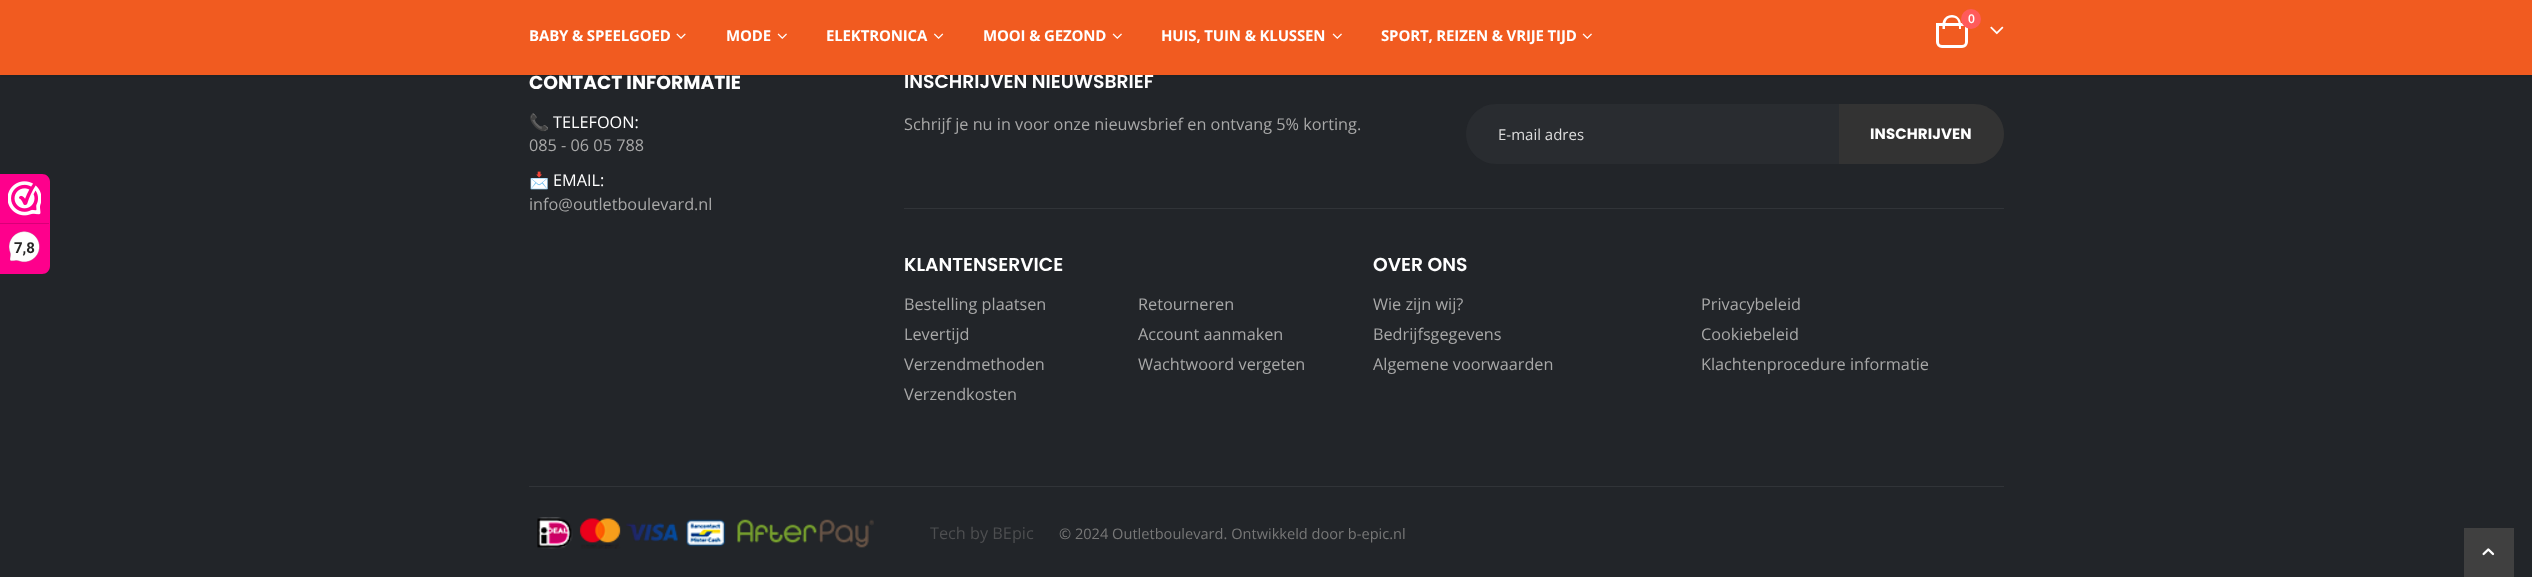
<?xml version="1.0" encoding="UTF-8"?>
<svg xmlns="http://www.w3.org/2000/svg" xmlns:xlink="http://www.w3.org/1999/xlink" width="2532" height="577">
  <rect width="100%" height="100%" fill="#222529" />
  <path d="M 0 174 h 42 c 4.5 0 8 3.5 8 8 v 84 c 0 4.5 -3.5 8 -8 8 h -42 z" fill="#fe008c" />
  <image x="8" y="181" width="33" height="35" xlink:href="image1.png" />
  <rect y="223" width="49" height="1" fill="#d80077" />
  <image x="9" y="231" width="31" height="32" xlink:href="image2.png" />
  <rect y="1" width="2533" height="75" fill="#000000" fill-opacity="0.1" filter="blur(1px)" />
  <path d="M 1496 104 h 343 v 60 h -343 c -16.5 0 -30 -13.5 -30 -30 c 0 -16.5 13.5 -30 30 -30 z" fill="#292c30" />
  <path d="M 1839 104 h 135 c 16.5 0 30 13.5 30 30 c 0 16.5 -13.5 30 -30 30 h -135 z" fill="#333333" />
  <rect x="904" y="208" width="1100" height="1" fill="#313438" />
  <rect x="529" y="486" width="1475" height="1" fill="#313438" />
  <image x="537" y="517" width="337" height="32" xlink:href="image7.png" />
  <rect x="2464" y="528" width="50" height="49" fill="#404040" />
  <image x="2482" y="548" width="13" height="8" xlink:href="image8.png" />
  <text x="14" y="253" style="font-family: Roboto; font-size: 15px; font-weight: bold; fill: #272626">7,8</text>
  <text x="529" y="89" style="font-family: Poppins; font-size: 18.75px; font-weight: bold; fill: #ffffff">CONTACT INFORMATIE</text>
  <text x="529" y="128" style="font-family: Noto Color Emoji; font-size: 16.25px; fill: #ffffff">📞</text>
  <text x="553" y="128" style="font-family: Open Sans; font-size: 16.25px; fill: #ffffff">TELEFOON:</text>
  <text x="529" y="151" style="font-family: Open Sans; font-size: 16.25px; fill: #a8a8a8">085 - 06 05 788</text>
  <text x="529" y="186" style="font-family: Noto Color Emoji; font-size: 16.25px; fill: #ffffff">📩</text>
  <text x="553" y="186" style="font-family: Open Sans; font-size: 16.25px; fill: #ffffff">EMAIL:</text>
  <text x="529" y="210" style="font-family: Open Sans; font-size: 16.25px; fill: #a8a8a8">info@outletboulevard.nl</text>
  <text x="904" y="88" style="font-family: Poppins; font-size: 18.75px; font-weight: 600; fill: #ffffff">INSCHRIJVEN NIEUWSBRIEF</text>
  <rect width="2532" height="75" fill="#f15b20" />
  <path d="M 1937.5 24.5 h 29 v 17.5 c 0 2.5 -2 4.5 -4.5 4.5 h -20 c -2.5 0 -4.5 -2 -4.5 -4.5 z" fill="none" stroke="#ffffff" stroke-width="3" />
  <circle cx="1971" cy="19" r="10" fill="#ff5b5b" />
  <text x="1968" y="23" style="font-family: Open Sans; font-size: 12px; font-weight: 600; fill: #ffffff">0</text>
  <path d="M 1952 15 c 5 0 9 4 9 9.5 v 4.5 h -18.5 v -4.5 c 0 -5.5 4 -9.5 9.5 -9.5 z m 0 2.5 c 7 0 7 6.5 7 11.5 h -14 c 0 -5 0 -11.5 7 -11.5 z" fill="#ffffff" fill-rule="evenodd" />
  <image x="1990" y="26" width="14" height="9" xlink:href="image3.png" />
  <image x="1582" y="33" width="10" height="6" xlink:href="image5.png" />
  <text x="1381" y="41" style="font-family: Open Sans; font-size: 15px; font-weight: bold; letter-spacing: -0.15px; fill: #ffffff">SPORT, REIZEN &amp; VRIJE TIJD</text>
  <image x="1332" y="33" width="10" height="6" xlink:href="image5.png" />
  <text x="1161" y="41" style="font-family: Open Sans; font-size: 15px; font-weight: bold; letter-spacing: -0.15px; fill: #ffffff">HUIS, TUIN &amp; KLUSSEN</text>
  <image x="1112" y="33" width="10" height="6" xlink:href="image5.png" />
  <text x="983" y="41" style="font-family: Open Sans; font-size: 15px; font-weight: bold; letter-spacing: -0.15px; fill: #ffffff">MOOI &amp; GEZOND</text>
  <image x="934" y="33" width="10" height="6" xlink:href="image6.png" />
  <text x="826" y="41" style="font-family: Open Sans; font-size: 15px; font-weight: bold; letter-spacing: -0.15px; fill: #ffffff">ELEKTRONICA</text>
  <image x="777" y="33" width="10" height="6" xlink:href="image5.png" />
  <text x="726" y="41" style="font-family: Open Sans; font-size: 15px; font-weight: bold; letter-spacing: -0.15px; fill: #ffffff">MODE</text>
  <image x="676" y="33" width="10" height="6" xlink:href="image4.png" />
  <text x="529" y="41" style="font-family: Open Sans; font-size: 15px; font-weight: bold; letter-spacing: -0.15px; fill: #ffffff">BABY &amp; SPEELGOED</text>
  <text x="904" y="130" style="font-family: Open Sans; font-size: 16.25px; fill: #a8a8a8">Schrijf je nu in voor onze nieuwsbrief en ontvang 5% korting.</text>
  <text x="1498" y="140" style="font-family: Open Sans; font-size: 15px; fill: #dddddd">E-mail adres</text>
  <text x="1870" y="139" style="font-family: Poppins; font-size: 15px; font-weight: bold; letter-spacing: 0.1px; fill: #ffffff">INSCHRIJVEN</text>
  <text x="904" y="271" style="font-family: Poppins; font-size: 18.75px; font-weight: 600; fill: #ffffff">KLANTENSERVICE</text>
  <text x="904" y="310" style="font-family: Open Sans; font-size: 16.25px; fill: #a8a8a8">Bestelling plaatsen</text>
  <text x="904" y="340" style="font-family: Open Sans; font-size: 16.25px; fill: #a8a8a8">Levertijd</text>
  <text x="904" y="370" style="font-family: Open Sans; font-size: 16.25px; fill: #a8a8a8">Verzendmethoden</text>
  <text x="904" y="400" style="font-family: Open Sans; font-size: 16.25px; fill: #a8a8a8">Verzendkosten</text>
  <text x="1138" y="310" style="font-family: Open Sans; font-size: 16.25px; fill: #a8a8a8">Retourneren</text>
  <text x="1138" y="340" style="font-family: Open Sans; font-size: 16.25px; fill: #a8a8a8">Account aanmaken</text>
  <text x="1138" y="370" style="font-family: Open Sans; font-size: 16.25px; fill: #a8a8a8">Wachtwoord vergeten</text>
  <text x="1373" y="271" style="font-family: Poppins; font-size: 18.75px; font-weight: 600; fill: #ffffff">OVER ONS</text>
  <text x="1373" y="310" style="font-family: Open Sans; font-size: 16.25px; fill: #a8a8a8">Wie zijn wij?</text>
  <text x="1373" y="340" style="font-family: Open Sans; font-size: 16.25px; fill: #a8a8a8">Bedrijfsgegevens</text>
  <text x="1373" y="370" style="font-family: Open Sans; font-size: 16.25px; fill: #a8a8a8">Algemene voorwaarden</text>
  <text x="1701" y="310" style="font-family: Open Sans; font-size: 16.25px; fill: #a8a8a8">Privacybeleid</text>
  <text x="1701" y="340" style="font-family: Open Sans; font-size: 16.25px; fill: #a8a8a8">Cookiebeleid</text>
  <text x="1701" y="370" style="font-family: Open Sans; font-size: 16.25px; fill: #a8a8a8">Klachtenprocedure informatie</text>
  <text x="930" y="539" style="font-family: Open Sans; font-size: 16.25px; fill: #4d4e50">Tech by BEpic</text>
  <text x="1059" y="539" style="font-family: Open Sans; font-size: 14.6px; fill: #777777">© 2024 Outletboulevard. Ontwikkeld door b-epic.nl</text>
</svg>
